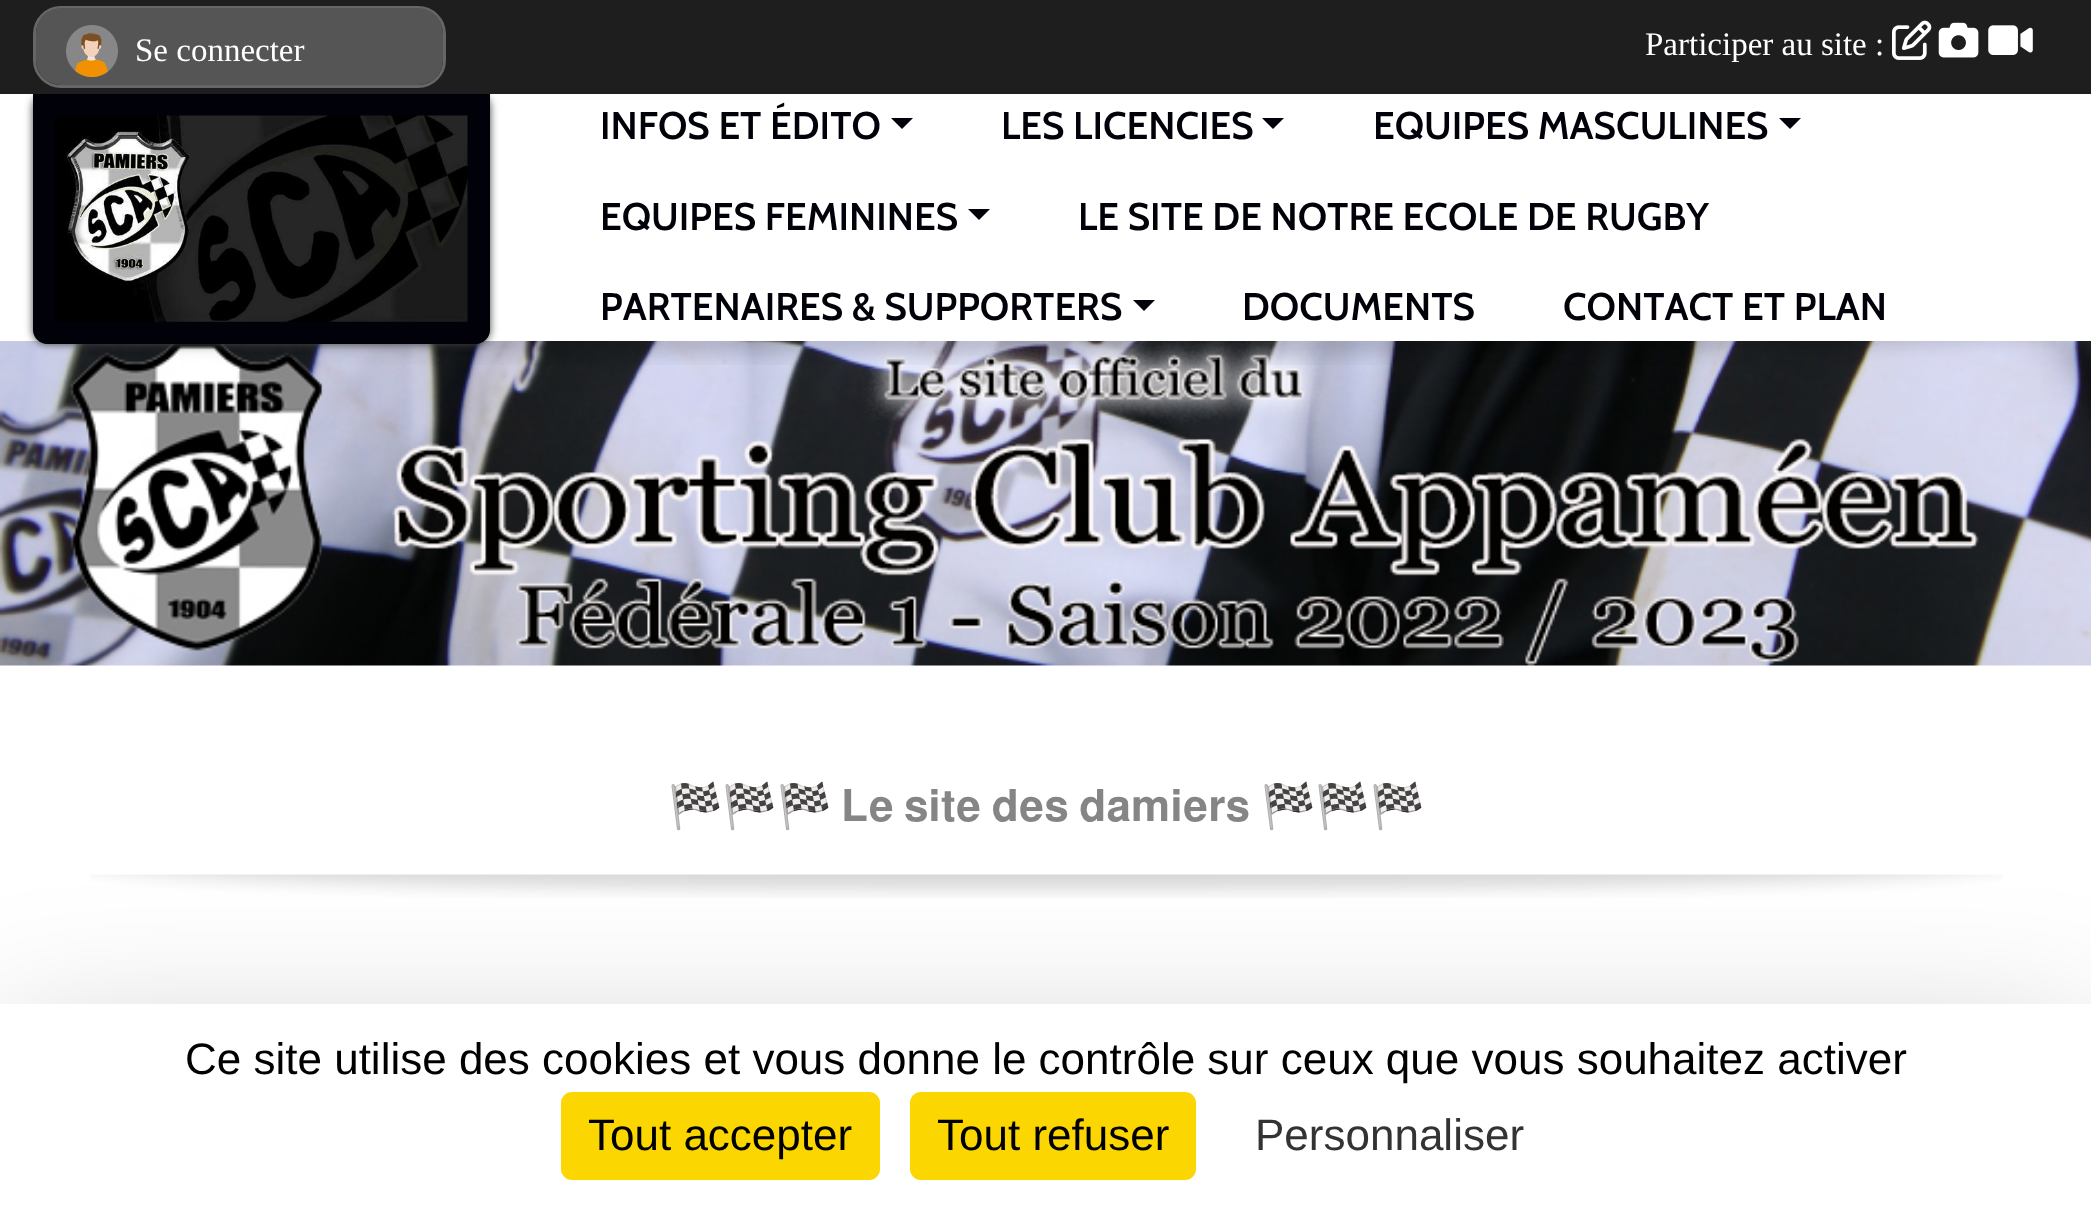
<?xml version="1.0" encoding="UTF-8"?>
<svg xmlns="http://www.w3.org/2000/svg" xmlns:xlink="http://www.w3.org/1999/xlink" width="2091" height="1206">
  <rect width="100%" height="100%" fill="#ffffff" />
  <image x="0" y="341" width="2091" height="325" xlink:href="image7.png" />
  <image x="37" y="341" width="2019" height="24" xlink:href="image6.png" />
  <rect x="33" y="94" width="457" height="250" rx="14" fill="#444444" filter="blur(4px)" />
  <rect width="2091" height="94" fill="#1e1e1e" />
  <rect x="34.5" y="7.5" width="410" height="79" rx="26.5" fill="none" stroke="#666666" stroke-width="3" />
  <rect x="36" y="8" width="407" height="77" rx="25" fill="#555555" />
  <image x="66" y="25" width="52" height="52" xlink:href="image1.png" />
  <image x="1892" y="20" width="40" height="40" xlink:href="image2.png" />
  <image x="1938" y="22" width="41" height="36" xlink:href="image3.png" />
  <image x="1988" y="25" width="45" height="30" xlink:href="image4.png" />
  <path d="M 33 94 h 457 v 236 c 0 7.5 -6.5 14 -14 14 h -429 c -7.5 0 -14 -6.5 -14 -14 z" fill="#01010a" />
  <image x="55" y="115" width="413" height="207" xlink:href="image5.png" />
  <path d="M 891 118 h 22 l -11 11 z" fill="#01010a" />
  <path d="M 1262 118 h 22 l -11 11 z" fill="#01010a" />
  <path d="M 1779 118 h 22 l -11 11 z" fill="#01010a" />
  <path d="M 968 209 h 22 l -11 11 z" fill="#01010a" />
  <path d="M 1133 300 h 22 l -11 11 z" fill="#01010a" />
  <image x="90" y="874" width="1913" height="24" xlink:href="image8.png" />
  <rect y="1059" width="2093" height="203" fill="#000000" fill-opacity="0.25" filter="blur(82.5px)" />
  <rect y="1004" width="2091" height="202" fill="#ffffff" />
  <rect x="561" y="1092" width="319" height="88" rx="11" fill="#fbd600" />
  <rect x="910" y="1092" width="286" height="88" rx="11" fill="#fbd600" />
  <text x="135" y="61" style="font-family: Liberation Serif; font-size: 33px; fill: #ffffff">Se connecter</text>
  <text x="1645" y="55" style="font-family: Liberation Serif; font-size: 33px; fill: #ffffff">Participer au site :</text>
  <text x="600" y="139" style="font-family: Cabin; font-size: 38.5px; font-weight: 600; fill: #01010a">INFOS ET ÉDITO</text>
  <text x="1001" y="139" style="font-family: Cabin; font-size: 38.5px; font-weight: 600; fill: #01010a">LES LICENCIES</text>
  <text x="1373" y="139" style="font-family: Cabin; font-size: 38.5px; font-weight: 600; fill: #01010a">EQUIPES MASCULINES</text>
  <text x="600" y="230" style="font-family: Cabin; font-size: 38.5px; font-weight: 600; fill: #01010a">EQUIPES FEMININES</text>
  <text x="1078" y="230" style="font-family: Cabin; font-size: 38.5px; font-weight: 600; fill: #01010a">LE SITE DE NOTRE ECOLE DE RUGBY</text>
  <text x="600" y="320" style="font-family: Cabin; font-size: 38.5px; font-weight: 600; fill: #01010a">PARTENAIRES &amp; SUPPORTERS</text>
  <text x="1242" y="320" style="font-family: Cabin; font-size: 38.5px; font-weight: 600; fill: #01010a">DOCUMENTS</text>
  <text x="1563" y="320" style="font-family: Cabin; font-size: 38.5px; font-weight: 600; fill: #01010a">CONTACT ET PLAN</text>
  <text x="668" y="821" style="font-family: Noto Color Emoji; font-size: 44px; fill: #858585">🏁🏁🏁</text>
  <text x="841" y="821" word-spacing="-1" style="font-family: FreeSans; font-size: 44px; fill: #858585">𝐋𝐞 𝐬𝐢𝐭𝐞 𝐝𝐞𝐬 𝐝𝐚𝐦𝐢𝐞𝐫𝐬</text>
  <text x="1261" y="821" style="font-family: Noto Color Emoji; font-size: 44px; fill: #858585">🏁🏁🏁</text>
  <text x="185" y="1074" style="font-family: Liberation Sans; font-size: 44px; fill: #000000">Ce site utilise des cookies et vous donne le contrôle sur ceux que vous souhaitez activer</text>
  <text x="588" y="1150" style="font-family: Liberation Sans; font-size: 44px; fill: #000000">Tout accepter</text>
  <text x="937" y="1150" style="font-family: Liberation Sans; font-size: 44px; fill: #000000">Tout refuser</text>
  <text x="1255" y="1150" style="font-family: Liberation Sans; font-size: 44px; fill: #333333">Personnaliser</text>
</svg>
